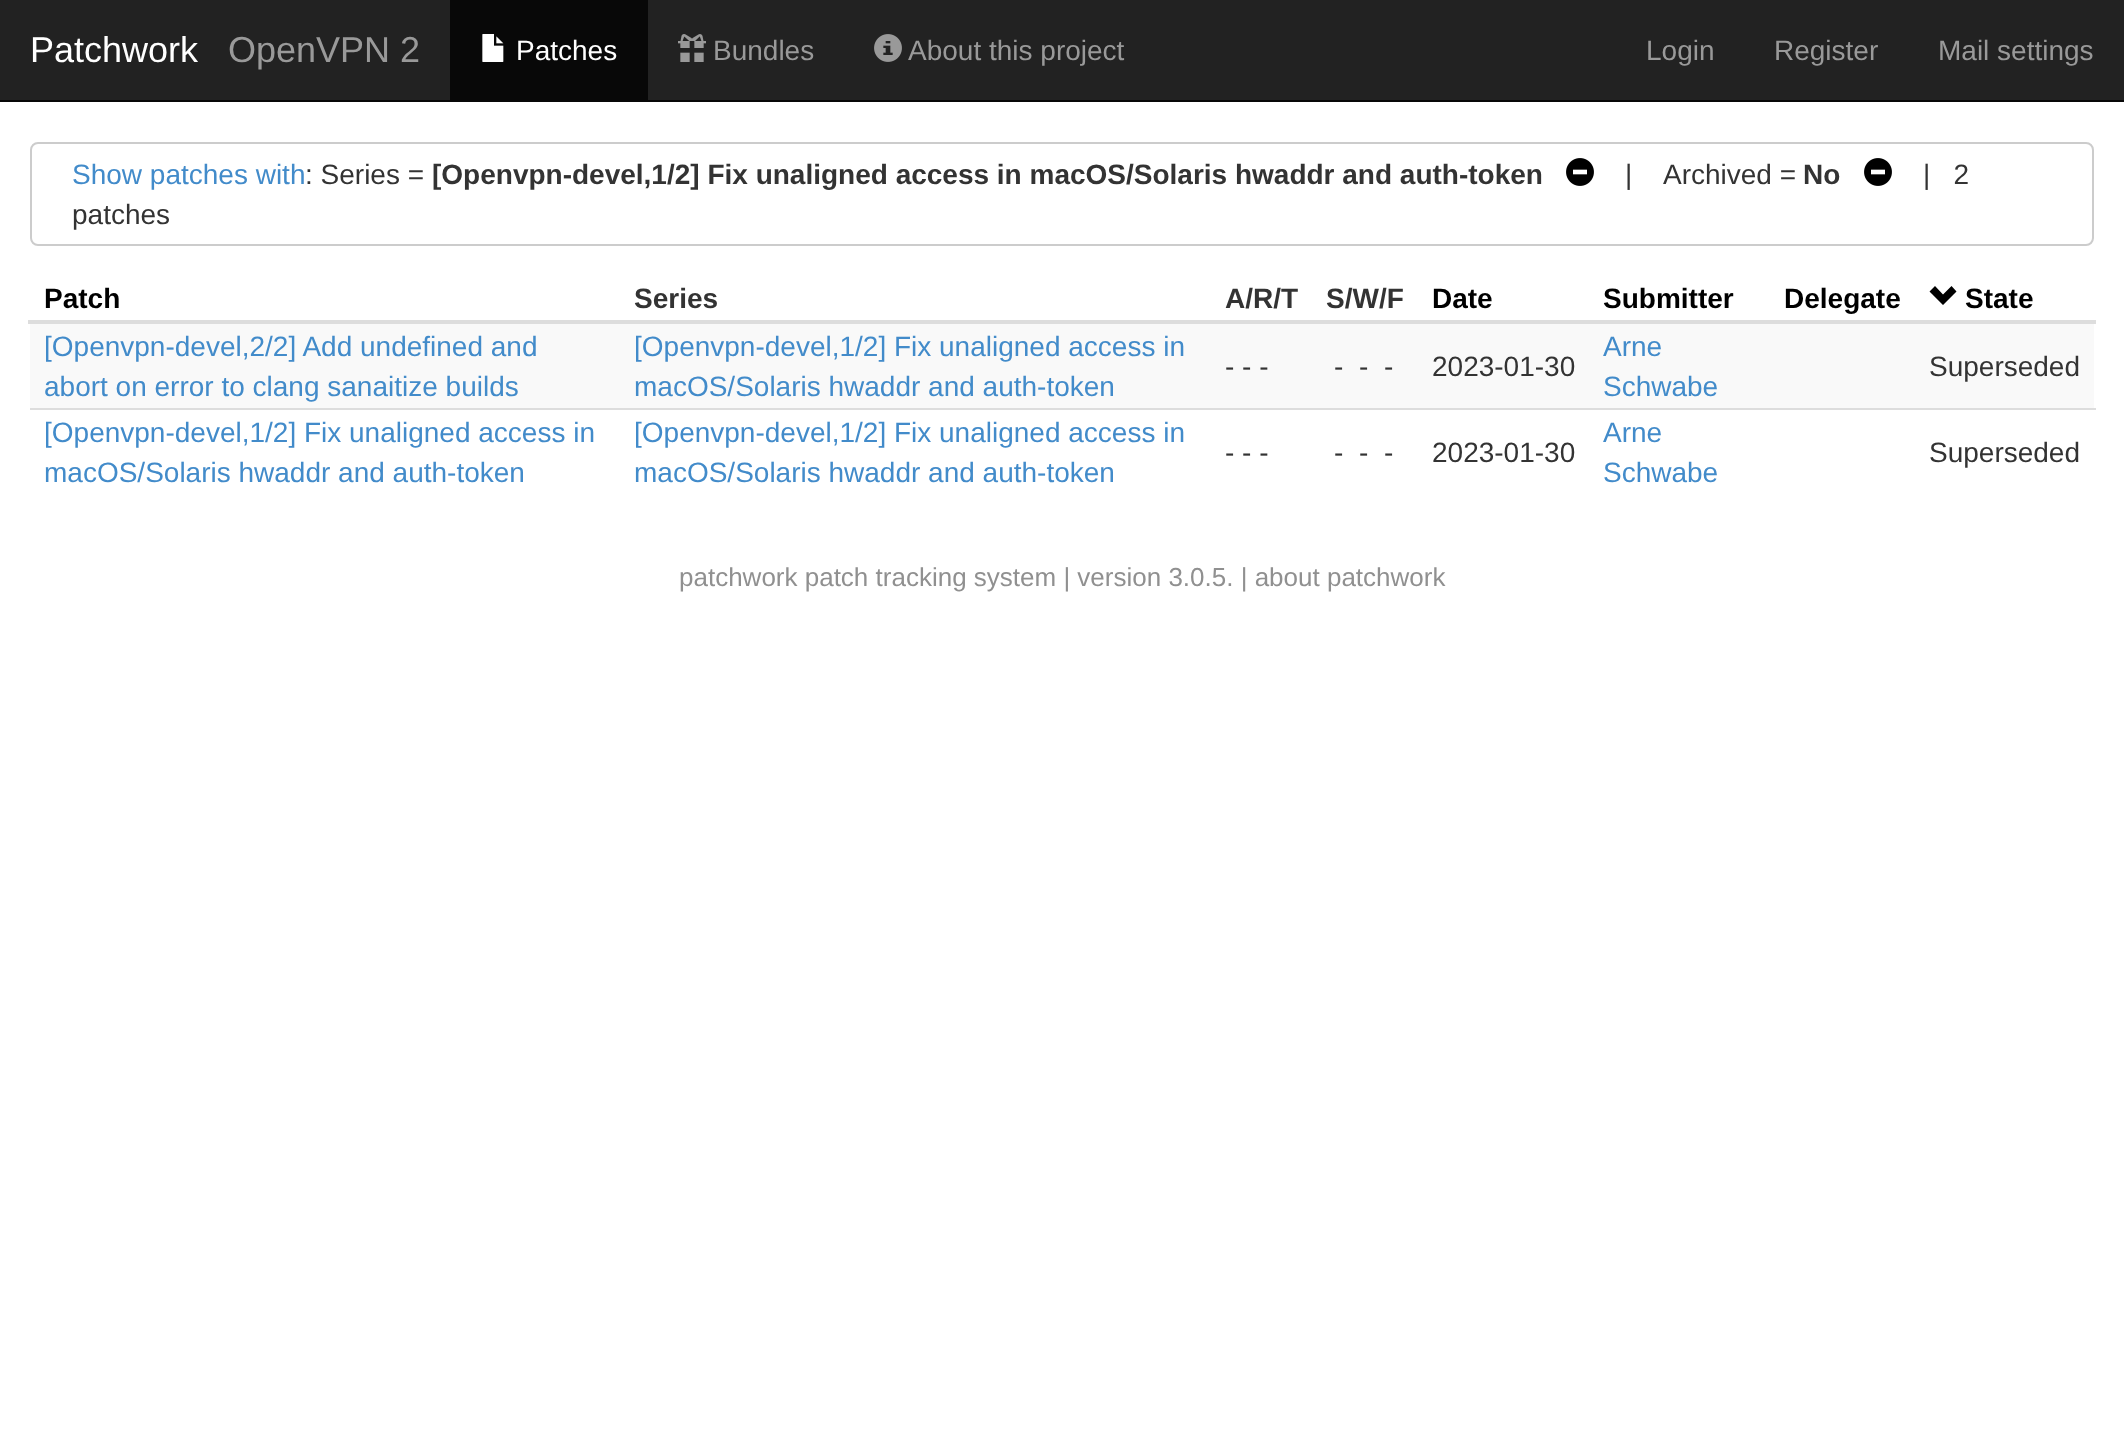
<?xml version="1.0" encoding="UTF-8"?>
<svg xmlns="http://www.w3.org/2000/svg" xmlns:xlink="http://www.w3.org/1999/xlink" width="2124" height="1429">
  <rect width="100%" height="100%" fill="#ffffff" />
  <rect width="2124" height="100" fill="#222222" />
  <rect y="100" width="2124" height="2" fill="#080808" />
  <rect x="450" width="198" height="100" fill="#080808" />
  <image x="482" y="34" width="22" height="28" xlink:href="image1.png" />
  <image x="678" y="34" width="28" height="28" xlink:href="image2.png" />
  <image x="874" y="34" width="28" height="28" xlink:href="image3.png" />
  <rect x="31" y="143" width="2062" height="102" rx="7" fill="none" stroke="#cccccc" stroke-width="2" />
  <image x="1566" y="158" width="28" height="28" xlink:href="image4.png" />
  <image x="1864" y="158" width="28" height="28" xlink:href="image4.png" />
  <rect x="28" y="320" width="2068" height="4" fill="#dddddd" />
  <path d="M 1929.5 291.5 l 13.5 13.5 l 13.5 -13.5 l -5 -5.5 l -8.5 8.5 l -8 -8.5 z" fill="#000000" />
  <rect x="30" y="324" width="2064" height="84" fill="#f9f9f9" />
  <rect x="30" y="408" width="2066" height="2" fill="#dddddd" />
  <text x="30" y="62" style="font-family: Liberation Sans; font-size: 36px; fill: #ffffff">Patchwork</text>
  <text x="228" y="62" style="font-family: Liberation Sans; font-size: 36px; fill: #999999">OpenVPN 2</text>
  <text x="516" y="60" style="font-family: Liberation Sans; font-size: 28px; fill: #ffffff">Patches</text>
  <text x="713" y="60" style="font-family: Liberation Sans; font-size: 28px; fill: #999999">Bundles</text>
  <text x="908" y="60" style="font-family: Liberation Sans; font-size: 28px; fill: #999999">About this project</text>
  <text x="1646" y="60" style="font-family: Liberation Sans; font-size: 28px; fill: #999999">Login</text>
  <text x="1774" y="60" style="font-family: Liberation Sans; font-size: 28px; fill: #999999">Register</text>
  <text x="1938" y="60" style="font-family: Liberation Sans; font-size: 28px; fill: #999999">Mail settings</text>
  <text x="72" y="184" style="font-family: Liberation Sans; font-size: 28px; fill: #428bca">Show patches with</text>
  <text x="305" y="184" style="font-family: Liberation Sans; font-size: 28px; fill: #333333">: Series =</text>
  <text x="432" y="184" style="font-family: Liberation Sans; font-size: 28px; font-weight: bold; fill: #333333">[Openvpn-devel,1/2] Fix unaligned access in macOS/Solaris hwaddr and auth-token</text>
  <text x="1625" y="184" style="font-family: Liberation Sans; font-size: 28px; fill: #333333">|</text>
  <text x="1663" y="184" style="font-family: Liberation Sans; font-size: 28px; fill: #333333">Archived =</text>
  <text x="1803" y="184" style="font-family: Liberation Sans; font-size: 28px; font-weight: bold; fill: #333333">No</text>
  <text x="1923" y="184" style="font-family: Liberation Sans; font-size: 28px; fill: #333333" xml:space="preserve">|   2</text>
  <text x="72" y="224" style="font-family: Liberation Sans; font-size: 28px; fill: #333333">patches</text>
  <text x="44" y="308" style="font-family: Liberation Sans; font-size: 28px; font-weight: bold; fill: #000000">Patch</text>
  <text x="634" y="308" style="font-family: Liberation Sans; font-size: 28px; font-weight: bold; fill: #333333">Series</text>
  <text x="1225" y="308" style="font-family: Liberation Sans; font-size: 28px; font-weight: bold; fill: #333333">A/R/T</text>
  <text x="1326" y="308" style="font-family: Liberation Sans; font-size: 28px; font-weight: bold; fill: #333333">S/W/F</text>
  <text x="1432" y="308" style="font-family: Liberation Sans; font-size: 28px; font-weight: bold; fill: #000000">Date</text>
  <text x="1603" y="308" style="font-family: Liberation Sans; font-size: 28px; font-weight: bold; fill: #000000">Submitter</text>
  <text x="1784" y="308" style="font-family: Liberation Sans; font-size: 28px; font-weight: bold; fill: #000000">Delegate</text>
  <text x="1965" y="308" style="font-family: Liberation Sans; font-size: 28px; font-weight: bold; fill: #000000">State</text>
  <text x="44" y="356" style="font-family: Liberation Sans; font-size: 28px; fill: #428bca">[Openvpn-devel,2/2] Add undefined and</text>
  <text x="44" y="396" style="font-family: Liberation Sans; font-size: 28px; fill: #428bca">abort on error to clang sanaitize builds</text>
  <text x="634" y="356" style="font-family: Liberation Sans; font-size: 28px; fill: #428bca">[Openvpn-devel,1/2] Fix unaligned access in</text>
  <text x="634" y="396" style="font-family: Liberation Sans; font-size: 28px; fill: #428bca">macOS/Solaris hwaddr and auth-token</text>
  <text x="1225" y="376" style="font-family: Liberation Sans; font-size: 28px; fill: #333333">- - -</text>
  <text x="1334" y="376" style="font-family: Liberation Sans; font-size: 28px; fill: #333333">-</text>
  <text x="1359" y="376" style="font-family: Liberation Sans; font-size: 28px; fill: #333333">-</text>
  <text x="1384" y="376" style="font-family: Liberation Sans; font-size: 28px; fill: #333333">-</text>
  <text x="1432" y="376" style="font-family: Liberation Sans; font-size: 28px; fill: #333333">2023-01-30</text>
  <text x="1603" y="356" style="font-family: Liberation Sans; font-size: 28px; fill: #428bca">Arne</text>
  <text x="1603" y="396" style="font-family: Liberation Sans; font-size: 28px; fill: #428bca">Schwabe</text>
  <text x="1929" y="376" style="font-family: Liberation Sans; font-size: 28px; fill: #333333">Superseded</text>
  <text x="44" y="442" style="font-family: Liberation Sans; font-size: 28px; fill: #428bca">[Openvpn-devel,1/2] Fix unaligned access in</text>
  <text x="44" y="482" style="font-family: Liberation Sans; font-size: 28px; fill: #428bca">macOS/Solaris hwaddr and auth-token</text>
  <text x="634" y="442" style="font-family: Liberation Sans; font-size: 28px; fill: #428bca">[Openvpn-devel,1/2] Fix unaligned access in</text>
  <text x="634" y="482" style="font-family: Liberation Sans; font-size: 28px; fill: #428bca">macOS/Solaris hwaddr and auth-token</text>
  <text x="1225" y="462" style="font-family: Liberation Sans; font-size: 28px; fill: #333333">- - -</text>
  <text x="1334" y="462" style="font-family: Liberation Sans; font-size: 28px; fill: #333333">-</text>
  <text x="1359" y="462" style="font-family: Liberation Sans; font-size: 28px; fill: #333333">-</text>
  <text x="1384" y="462" style="font-family: Liberation Sans; font-size: 28px; fill: #333333">-</text>
  <text x="1432" y="462" style="font-family: Liberation Sans; font-size: 28px; fill: #333333">2023-01-30</text>
  <text x="1603" y="442" style="font-family: Liberation Sans; font-size: 28px; fill: #428bca">Arne</text>
  <text x="1603" y="482" style="font-family: Liberation Sans; font-size: 28px; fill: #428bca">Schwabe</text>
  <text x="1929" y="462" style="font-family: Liberation Sans; font-size: 28px; fill: #333333">Superseded</text>
  <text x="679" y="586" style="font-family: Liberation Sans; font-size: 26px; fill: #909090">patchwork patch tracking system | version 3.0.5. | about patchwork</text>
</svg>
